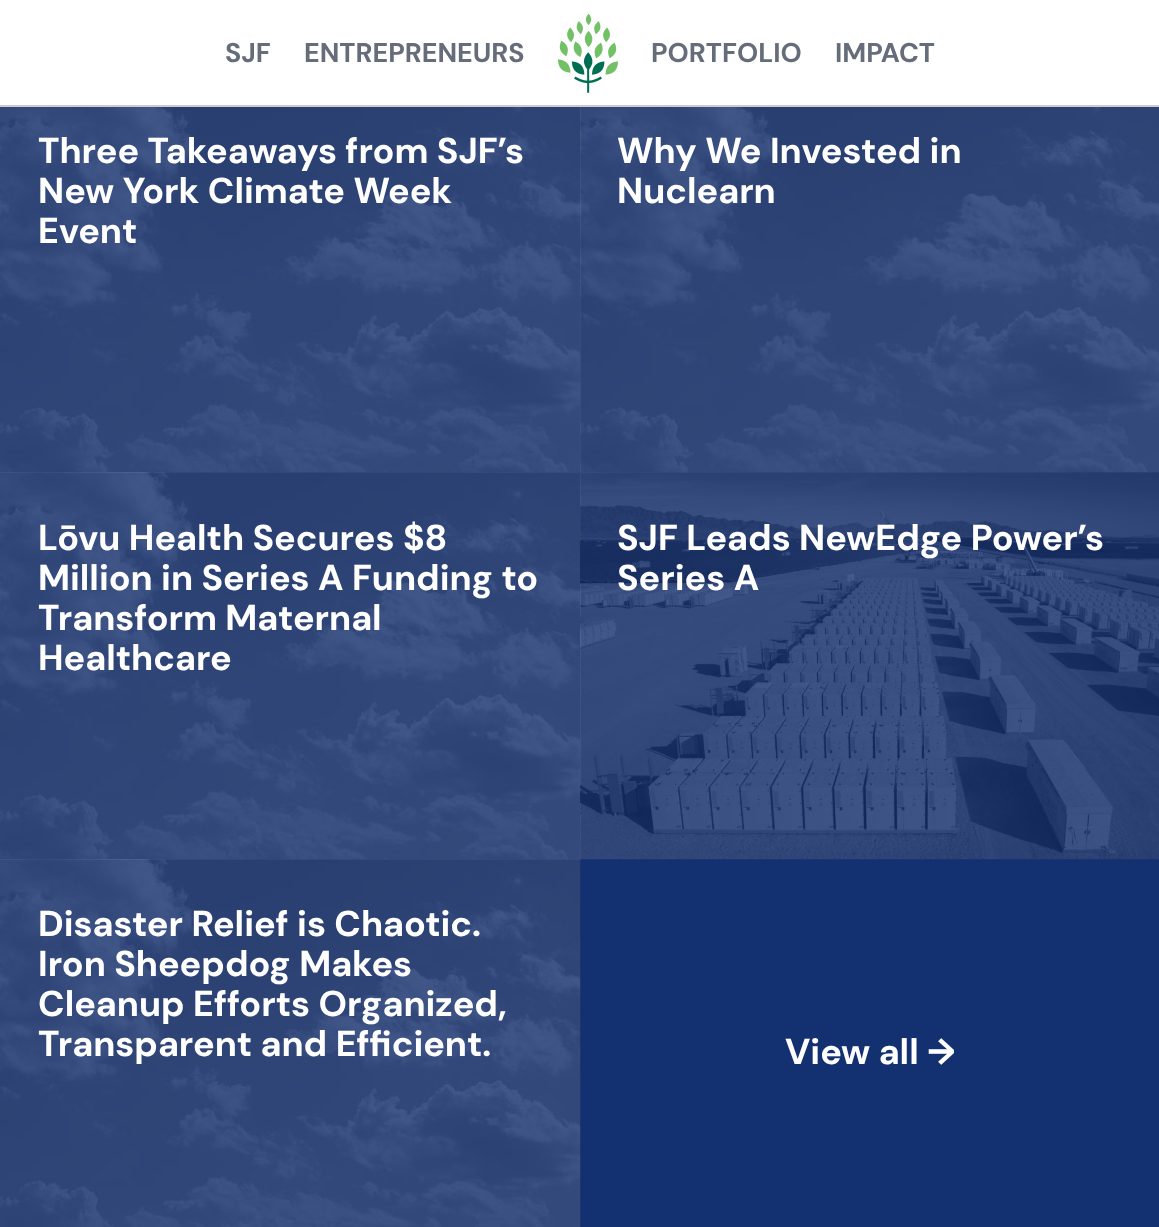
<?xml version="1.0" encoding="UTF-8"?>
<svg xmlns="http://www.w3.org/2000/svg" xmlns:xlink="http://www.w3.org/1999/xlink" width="1159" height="1227">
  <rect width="100%" height="100%" fill="#133170" />
  <rect width="1159" height="105" fill="#ffffff" />
  <rect y="105" width="1159" height="2" fill="#cccccc" />
  <image x="558" y="13" width="60" height="80" xlink:href="image1.png" />
  <image x="0" y="107" width="581" height="366" xlink:href="image2.png" />
  <image x="580" y="107" width="579" height="366" xlink:href="image3.png" />
  <image x="0" y="472" width="581" height="388" xlink:href="image4.png" />
  <image x="580" y="472" width="579" height="388" xlink:href="image5.png" />
  <image x="0" y="859" width="581" height="368" xlink:href="image6.png" />
  <text x="225" y="62" style="font-family: 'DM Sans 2'; font-size: 27px; font-weight: bold; fill: #656c7a">SJF</text>
  <text x="304" y="62" style="font-family: 'DM Sans 2'; font-size: 27px; font-weight: bold; fill: #656c7a">ENTREPRENEURS</text>
  <text x="651" y="62" style="font-family: 'DM Sans 2'; font-size: 27px; font-weight: bold; fill: #656c7a">PORTFOLIO</text>
  <text x="835" y="62" style="font-family: 'DM Sans 2'; font-size: 27px; font-weight: bold; fill: #656c7a">IMPACT</text>
  <text x="38" y="163" style="font-family: DM Sans; font-size: 36px; font-weight: bold; fill: #ffffff">Three Takeaways from SJF’s</text>
  <text x="38" y="203" style="font-family: DM Sans; font-size: 36px; font-weight: bold; fill: #ffffff">New York Climate Week</text>
  <text x="38" y="243" style="font-family: DM Sans; font-size: 36px; font-weight: bold; fill: #ffffff">Event</text>
  <text x="617" y="163" style="font-family: DM Sans; font-size: 36px; font-weight: bold; fill: #ffffff">Why We Invested in</text>
  <text x="617" y="203" style="font-family: DM Sans; font-size: 36px; font-weight: bold; fill: #ffffff">Nuclearn</text>
  <text x="38" y="550" style="font-family: DM Sans; font-size: 36px; font-weight: bold; fill: #ffffff">Lōvu Health Secures $8</text>
  <text x="38" y="590" style="font-family: DM Sans; font-size: 36px; font-weight: bold; fill: #ffffff">Million in Series A Funding to</text>
  <text x="38" y="630" style="font-family: DM Sans; font-size: 36px; font-weight: bold; fill: #ffffff">Transform Maternal</text>
  <text x="38" y="670" style="font-family: DM Sans; font-size: 36px; font-weight: bold; fill: #ffffff">Healthcare</text>
  <text x="617" y="550" style="font-family: DM Sans; font-size: 36px; font-weight: bold; fill: #ffffff">SJF Leads NewEdge Power’s</text>
  <text x="617" y="590" style="font-family: DM Sans; font-size: 36px; font-weight: bold; fill: #ffffff">Series A</text>
  <text x="38" y="936" style="font-family: DM Sans; font-size: 36px; font-weight: bold; fill: #ffffff">Disaster Relief is Chaotic.</text>
  <text x="38" y="976" style="font-family: DM Sans; font-size: 36px; font-weight: bold; fill: #ffffff">Iron Sheepdog Makes</text>
  <text x="38" y="1016" style="font-family: DM Sans; font-size: 36px; font-weight: bold; fill: #ffffff">Cleanup Efforts Organized,</text>
  <text x="38" y="1056" style="font-family: DM Sans; font-size: 36px; font-weight: bold; fill: #ffffff">Transparent and Efficient.</text>
  <text x="785" y="1064" style="font-family: DM Sans; font-size: 36px; font-weight: bold; fill: #ffffff">View all →</text>
</svg>
